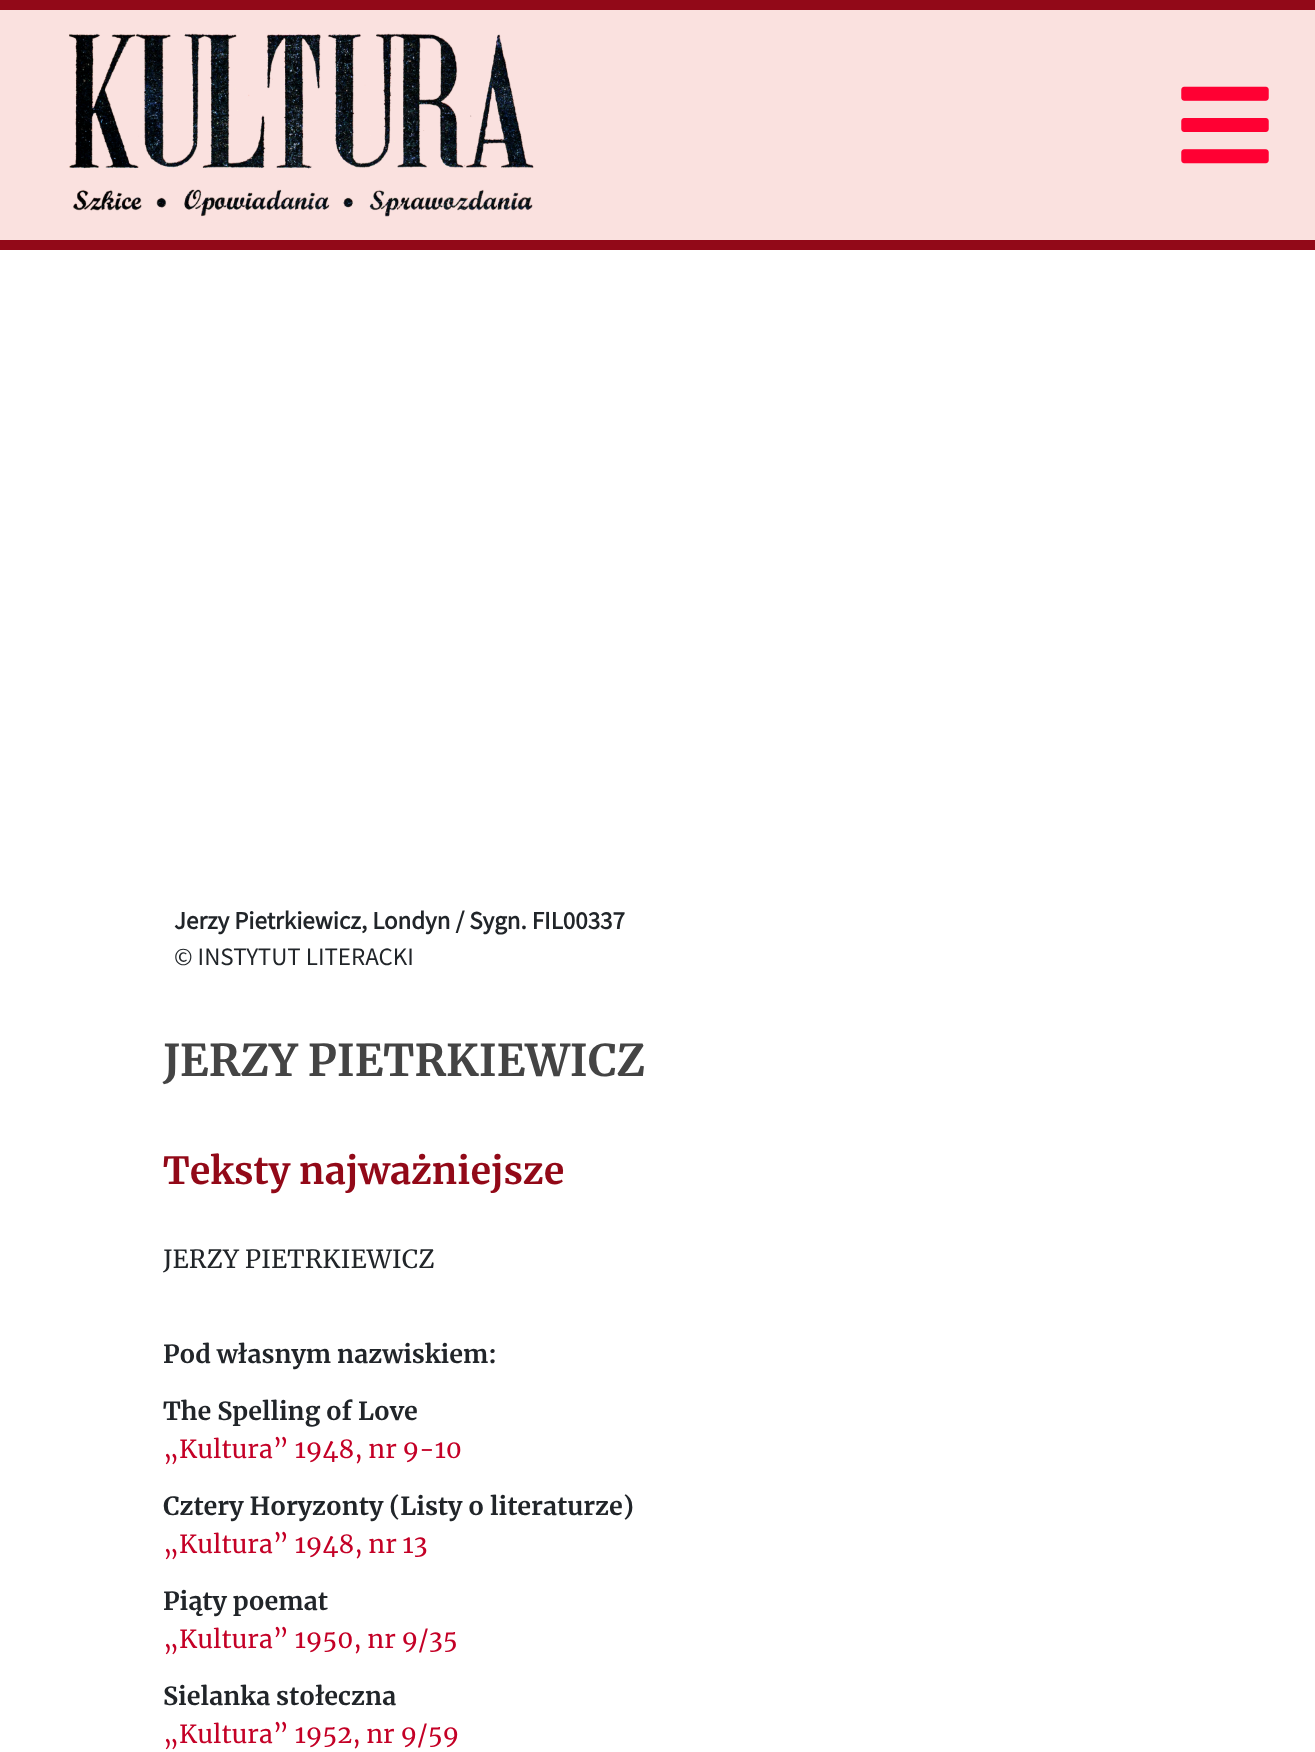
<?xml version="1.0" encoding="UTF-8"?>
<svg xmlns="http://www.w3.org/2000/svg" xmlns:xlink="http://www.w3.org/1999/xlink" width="1315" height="1752">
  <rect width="100%" height="100%" fill="#ffffff" />
  <rect y="10" width="1315" height="230" fill="#fae1df" />
  <rect width="1315" height="10" fill="#920918" />
  <rect y="240" width="1315" height="10" fill="#920918" />
  <image x="69" y="33" width="465" height="184" xlink:href="image1.png" />
  <image x="1181" y="86" width="88" height="78" xlink:href="image2.png" />
  <text x="174" y="929" style="font-family: Source Sans Pro; font-size: 25px; font-weight: bold; fill: #212529">Jerzy Pietrkiewicz, Londyn / Sygn. FIL00337</text>
  <text x="174" y="965" style="font-family: Source Sans Pro; font-size: 25px; fill: #212529">© INSTYTUT LITERACKI</text>
  <text x="163" y="1076" style="font-family: Merriweather; font-size: 43.75px; font-weight: bold; fill: #444444">JERZY PIETRKIEWICZ</text>
  <text x="163" y="1184" style="font-family: Merriweather; font-size: 37.5px; font-weight: bold; fill: #920918">Teksty najważniejsze</text>
  <text x="163" y="1268" style="font-family: Merriweather; font-size: 25px; fill: #212529">JERZY PIETRKIEWICZ</text>
  <text x="163" y="1363" style="font-family: Merriweather; font-size: 25px; font-weight: bold; fill: #212529">Pod własnym nazwiskiem:</text>
  <text x="163" y="1420" style="font-family: Merriweather; font-size: 25px; font-weight: bold; fill: #212529">The Spelling of Love</text>
  <text x="163" y="1458" style="font-family: Merriweather; font-size: 25px; fill: #c40026">„Kultura” 1948, nr 9-10</text>
  <text x="163" y="1515" style="font-family: Merriweather; font-size: 25px; font-weight: bold; fill: #212529">Cztery Horyzonty (Listy o literaturze)</text>
  <text x="163" y="1553" style="font-family: Merriweather; font-size: 25px; fill: #c40026">„Kultura” 1948, nr 13</text>
  <text x="163" y="1610" style="font-family: Merriweather; font-size: 25px; font-weight: bold; fill: #212529">Piąty poemat</text>
  <text x="163" y="1648" style="font-family: Merriweather; font-size: 25px; fill: #c40026">„Kultura” 1950, nr 9/35</text>
  <text x="163" y="1705" style="font-family: Merriweather; font-size: 25px; font-weight: bold; fill: #212529">Sielanka stołeczna</text>
  <text x="163" y="1743" style="font-family: Merriweather; font-size: 25px; fill: #c40026">„Kultura” 1952, nr 9/59</text>
</svg>
